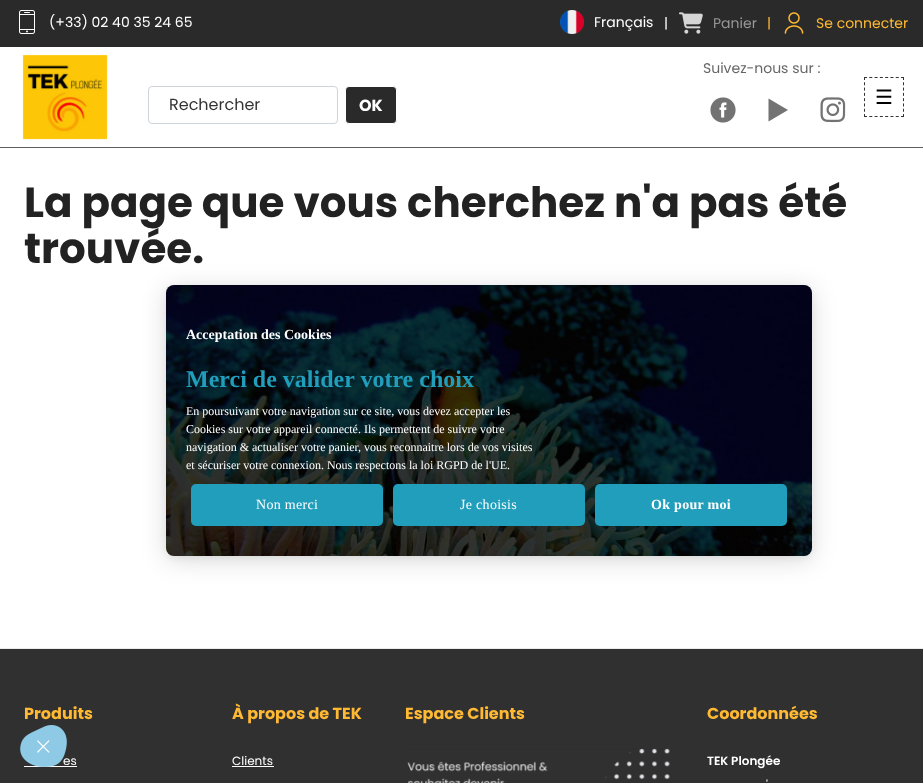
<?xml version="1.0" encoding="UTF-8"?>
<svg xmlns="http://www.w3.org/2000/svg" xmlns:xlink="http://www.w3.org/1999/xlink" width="923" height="783">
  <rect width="100%" height="100%" fill="#ffffff" />
  <rect width="923" height="47" fill="#2a2a2a" />
  <image x="19" y="10" width="16" height="24" xlink:href="image1.png" />
  <image x="560" y="10" width="24" height="24" xlink:href="image2.png" />
  <image x="679" y="12" width="24" height="22" xlink:href="image3.png" />
  <image x="784" y="12" width="20" height="22" xlink:href="image4.png" />
  <image x="22" y="54" width="86" height="86" xlink:href="image5.png" />
  <image x="710" y="97" width="26" height="26" xlink:href="image6.png" />
  <path d="M 788 110 l -19.5 11.5 v -23 z" fill="#737373" />
  <image x="820" y="97" width="26" height="26" xlink:href="image7.png" />
  <rect x="148.5" y="86.5" width="189" height="37" rx="3.5" fill="none" stroke="#ced4da" />
  <rect x="345.5" y="86.5" width="51" height="37" rx="3.5" fill="#2a2a2a" stroke="#ffffff" />
  <rect y="147" width="923" height="1" fill="#5c5c5c" />
  <path d="M 864 77.5 h 40 m -0.5 -0.5 v 40 m -39.5 -0.5 h 40 m -39.5 -39.5 v 40" fill="none" stroke="#333333" stroke-dasharray="3 2.29" />
  <rect y="649" width="923" height="134" fill="#313031" />
  <rect y="648" width="923" height="1" fill="#eaeaea" />
  <rect x="24" y="766" width="53" height="1" fill="#ffffff" />
  <rect x="232" y="766" width="42" height="1" fill="#ffffff" />
  <image x="407" y="748" width="263" height="35" xlink:href="image8.png" />
  <rect x="166" y="287" width="646" height="271" rx="8" fill="#000000" fill-opacity="0.05" filter="blur(3px)" />
  <rect x="166" y="289" width="646" height="271" rx="8" fill="#000000" fill-opacity="0.15" filter="blur(12px)" />
  <image x="166" y="285" width="646" height="271" xlink:href="image9.png" />
  <rect x="191" y="484" width="192" height="42" rx="5" fill="#219ebc" />
  <rect x="393" y="484" width="192" height="42" rx="5" fill="#219ebc" />
  <rect x="595" y="484" width="192" height="42" rx="5" fill="#219ebc" />
  <text x="49" y="27" style="font-family: Poppins; font-size: 14px; fill: #ffffff">(+33) 02 40 35 24 65</text>
  <text x="594" y="27" style="font-family: Poppins; font-size: 14px; fill: #ffffff">Français</text>
  <text x="664" y="28" style="font-family: Poppins; font-size: 14px; fill: #ffffff">|</text>
  <text x="713" y="28" style="font-family: Poppins; font-size: 14px; fill: #979797">Panier</text>
  <text x="767" y="28" style="font-family: Poppins; font-size: 14px; fill: #ffb932">|</text>
  <text x="816" y="28" style="font-family: Poppins; font-size: 14px; fill: #ffb932">Se connecter</text>
  <text x="703" y="73" style="font-family: Poppins; font-size: 14px; fill: #666666">Suivez-nous sur :</text>
  <text x="169" y="110" style="font-family: Poppins; font-size: 16px; fill: #333333">Rechercher</text>
  <text x="359" y="111" style="font-family: Poppins; font-size: 16px; font-weight: bold; fill: #ffffff">OK</text>
  <text x="875" y="104" style="font-family: DejaVu Sans; font-size: 20px; fill: #000000">☰</text>
  <text x="24" y="217" style="font-family: Poppins; font-size: 42px; font-weight: bold; fill: #222222">La page que vous cherchez n'a pas été</text>
  <text x="24" y="263" style="font-family: Poppins; font-size: 42px; font-weight: bold; fill: #222222">trouvée.</text>
  <text x="24" y="719" style="font-family: Poppins; font-size: 16px; font-weight: bold; fill: #ffb932">Produits</text>
  <text x="63" y="765" style="font-family: Poppins; font-size: 12px; fill: #ffffff">es</text>
  <text x="232" y="719" style="font-family: Poppins; font-size: 16px; font-weight: bold; fill: #ffb932">À propos de TEK</text>
  <text x="232" y="765" style="font-family: Poppins; font-size: 12px; fill: #ffffff">Clients</text>
  <text x="405" y="719" style="font-family: Poppins; font-size: 16px; font-weight: bold; fill: #ffb932">Espace Clients</text>
  <text x="707" y="719" style="font-family: Poppins; font-size: 16px; font-weight: bold; fill: #ffb932">Coordonnées</text>
  <text x="707" y="765" style="font-family: Poppins; font-size: 12px; font-weight: 600; fill: #ffffff">TEK Plongée</text>
  <text x="766" y="789" word-spacing="1" style="font-family: Poppins; font-size: 12px; fill: #ffffff">'</text>
  <text x="186" y="339" style="font-family: Liberation Serif; font-size: 14px; font-weight: bold; fill: #ffffff">Acceptation des Cookies</text>
  <text x="186" y="387" style="font-family: Liberation Serif; font-size: 24px; font-weight: bold; fill: #219ebc">Merci de valider votre choix</text>
  <text x="186" y="415" style="font-family: Liberation Serif; font-size: 12px; fill: #ffffff">En poursuivant votre navigation sur ce site, vous devez accepter les</text>
  <text x="186" y="433" style="font-family: Liberation Serif; font-size: 12px; fill: #ffffff">Cookies sur votre appareil connecté. Ils permettent de suivre votre</text>
  <text x="186" y="451" style="font-family: Liberation Serif; font-size: 12px; fill: #ffffff">navigation &amp; actualiser votre panier, vous reconnaitre lors de vos visites</text>
  <text x="186" y="469" style="font-family: Liberation Serif; font-size: 12px; fill: #ffffff">et sécuriser votre connexion. Nous respectons la loi RGPD de l'UE.</text>
  <text x="256" y="509" style="font-family: Liberation Serif; font-size: 14px; letter-spacing: 0.3px; fill: #ffffff">Non merci</text>
  <text x="460" y="509" style="font-family: Liberation Serif; font-size: 14px; letter-spacing: 0.3px; fill: #ffffff">Je choisis</text>
  <text x="651" y="509" style="font-family: Liberation Serif; font-size: 14px; font-weight: bold; letter-spacing: 0.3px; fill: #ffffff">Ok pour moi</text>
  <image x="20" y="725" width="47" height="42" xlink:href="image10.png" />
</svg>
